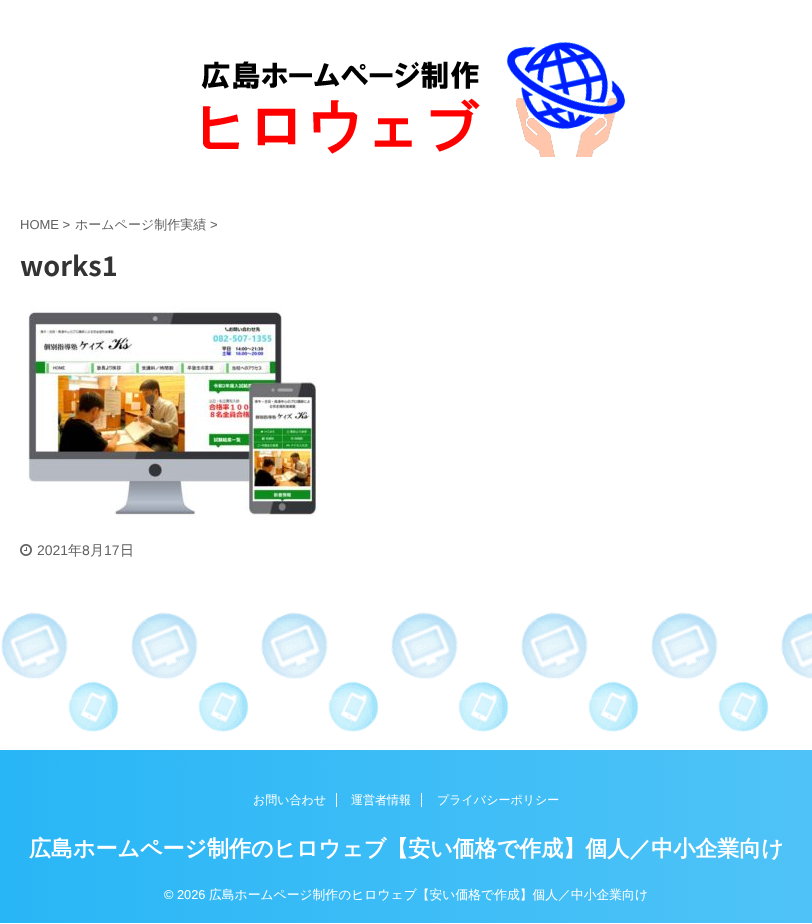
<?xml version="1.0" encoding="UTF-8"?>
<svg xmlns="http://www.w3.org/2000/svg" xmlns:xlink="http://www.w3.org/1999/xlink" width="812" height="924">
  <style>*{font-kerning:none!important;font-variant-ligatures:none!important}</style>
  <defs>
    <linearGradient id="g1" gradientUnits="userSpaceOnUse" x1="812" y1="837" x2="0" y2="837"><stop offset="0" stop-color="#4fc3f7" /><stop offset="1" stop-color="#29b6f6" /></linearGradient>
  </defs>
  <rect width="100%" height="100%" fill="#ffffff" />
  <image x="0" y="599" width="812" height="325" xlink:href="image1.png" />
  <image x="201" y="41" width="425" height="116" xlink:href="image2.png" />
  <image x="28" y="306" width="292" height="214" xlink:href="image3.png" />
  <image x="20" y="544" width="12" height="12" xlink:href="image4.png" />
  <rect y="750" width="812" height="173" fill="url(#g1)" />
  <rect x="336" y="793" width="1" height="14" fill="#ffffff" />
  <rect x="421" y="793" width="1" height="14" fill="#ffffff" />
  <text x="20" y="229" style="font-family: Liberation Sans; font-size: 13px; fill: #616161">HOME &gt;</text>
  <text x="75" y="229" style="font-family: WenQuanYi Zen Hei; font-size: 13px; font-weight: 500; fill: #616161">ホームページ制作実績</text>
  <text x="210" y="229" style="font-family: Liberation Sans; font-size: 13px; fill: #616161">&gt;</text>
  <text x="20" y="276" style="font-family: Noto Sans JP; font-size: 27px; font-weight: bold; fill: #333333">works1</text>
  <text x="37" y="555" style="font-family: Liberation Sans; font-size: 14px; fill: #616161">2021</text>
  <text x="68" y="555" style="font-family: WenQuanYi Zen Hei; font-size: 14px; font-weight: 500; fill: #616161">年</text>
  <text x="82" y="555" style="font-family: Liberation Sans; font-size: 14px; fill: #616161">8</text>
  <text x="90" y="555" style="font-family: WenQuanYi Zen Hei; font-size: 14px; font-weight: 500; fill: #616161">月</text>
  <text x="104" y="555" style="font-family: Liberation Sans; font-size: 14px; fill: #616161">17</text>
  <text x="120" y="555" style="font-family: WenQuanYi Zen Hei; font-size: 14px; font-weight: 500; fill: #616161">日</text>
  <text x="253" y="804" style="font-family: WenQuanYi Zen Hei; font-size: 12px; font-weight: 500; fill: #ffffff">お問い合わせ</text>
  <text x="351" y="804" style="font-family: WenQuanYi Zen Hei; font-size: 12px; font-weight: 500; fill: #ffffff">運営者情報</text>
  <text x="437" y="804" style="font-family: WenQuanYi Zen Hei; font-size: 12px; font-weight: 500; fill: #ffffff">プライバシーポリシー</text>
  <text x="29" y="856" style="font-family: WenQuanYi Zen Hei; font-size: 22px; font-weight: bold; fill: #ffffff">広島ホームページ制作のヒロウェブ【安い価格で作成】個人／中小企業向け</text>
  <text x="164" y="899" style="font-family: Liberation Sans; font-size: 12.8px; fill: #ffffff">© 2026</text>
  <text x="209" y="899" style="font-family: WenQuanYi Zen Hei; font-size: 12.8px; font-weight: 500; fill: #ffffff">広島ホームページ制作のヒロウェブ【安い価格で作成】個人／中小企業向け</text>
</svg>
